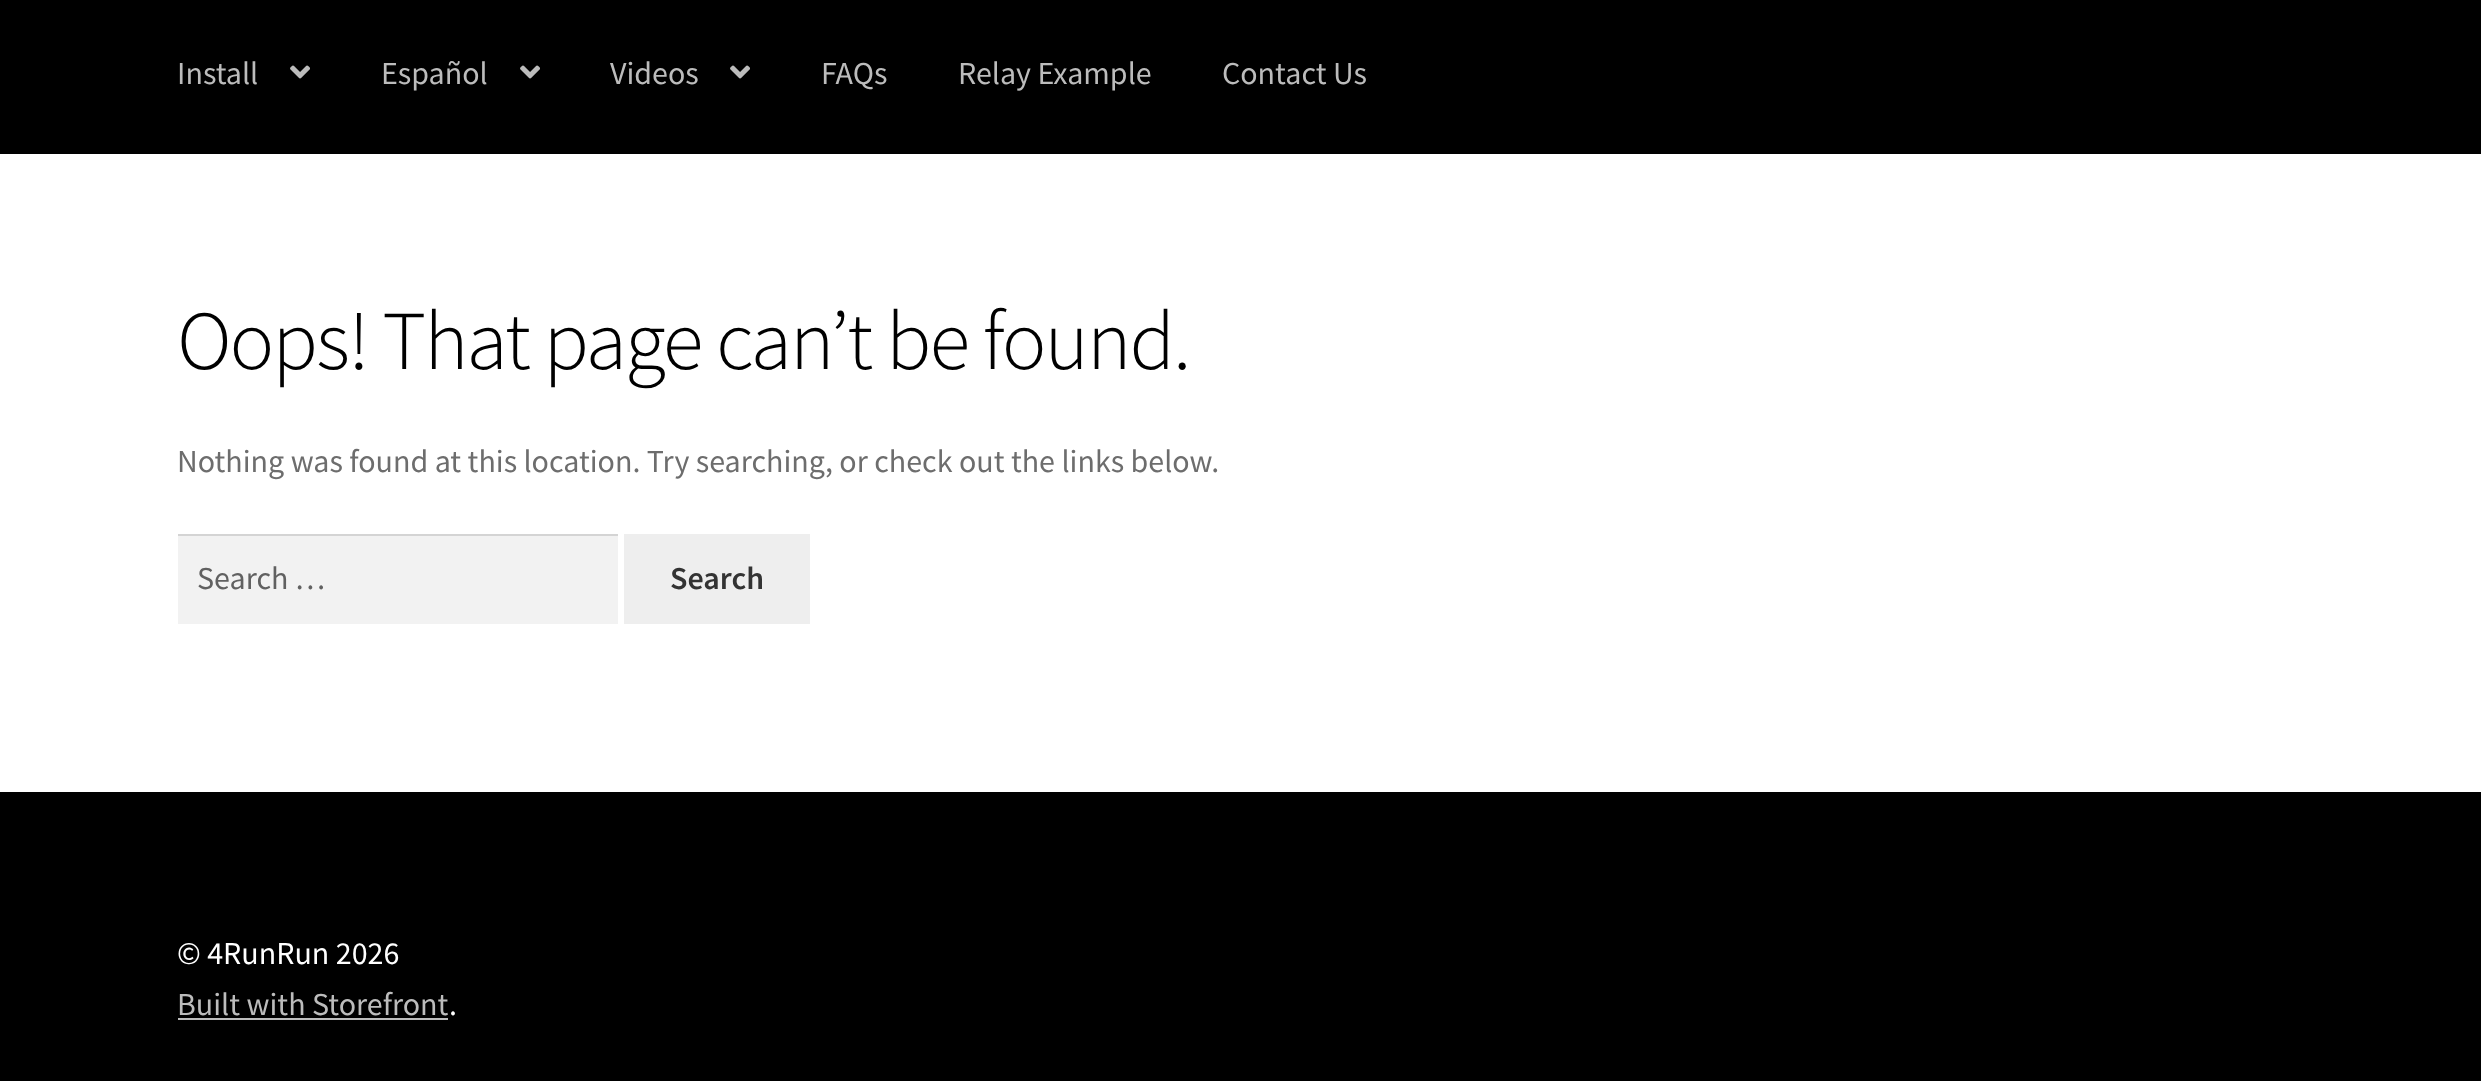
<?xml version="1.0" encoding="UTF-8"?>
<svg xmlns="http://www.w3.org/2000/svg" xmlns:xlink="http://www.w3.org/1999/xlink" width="2481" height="1081">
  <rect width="100%" height="100%" fill="#ffffff" />
  <rect width="2481" height="154" fill="#000000" />
  <image x="290" y="65" width="20" height="14" xlink:href="image1.png" />
  <image x="520" y="65" width="20" height="14" xlink:href="image1.png" />
  <image x="730" y="65" width="20" height="14" xlink:href="image1.png" />
  <rect x="178" y="536" width="440" height="88" fill="#f2f2f2" />
  <rect x="178" y="534" width="440" height="2" fill="#d4d4d4" />
  <rect x="624" y="534" width="186" height="90" fill="#eeeeee" />
  <rect y="792" width="2481" height="289" fill="#000000" />
  <rect x="178" y="1018" width="270" height="2" fill="#bcbcbc" />
  <text x="177" y="84" style="font-family: Source Sans Pro; font-size: 32px; fill: #bcbcbc">Install</text>
  <text x="381" y="84" style="font-family: Source Sans Pro; font-size: 32px; fill: #bcbcbc">Español</text>
  <text x="610" y="84" style="font-family: Source Sans Pro; font-size: 32px; fill: #bcbcbc">Videos</text>
  <text x="821" y="84" style="font-family: Source Sans Pro; font-size: 32px; fill: #bcbcbc">FAQs</text>
  <text x="958" y="84" style="font-family: Source Sans Pro; font-size: 32px; fill: #bcbcbc">Relay Example</text>
  <text x="1222" y="84" style="font-family: Source Sans Pro; font-size: 32px; fill: #bcbcbc">Contact Us</text>
  <text x="177" y="369" style="font-family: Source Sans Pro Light; font-size: 83.75px; font-weight: 300; letter-spacing: -2px; fill: #000000">Oops! That page can’t be found.</text>
  <text x="177" y="472" style="font-family: Source Sans Pro; font-size: 32px; fill: #6d6d6d">Nothing was found at this location. Try searching, or check out the links below.</text>
  <text x="197" y="589" style="font-family: Source Sans Pro; font-size: 32px; fill: #616161">Search …</text>
  <text x="670" y="589" style="font-family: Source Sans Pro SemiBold; font-size: 32px; font-weight: 600; fill: #333333">Search</text>
  <text x="177" y="964" style="font-family: Source Sans Pro; font-size: 32px; fill: #ffffff">© 4RunRun 2026</text>
  <text x="177" y="1015" style="font-family: Source Sans Pro; font-size: 32px; fill: #bcbcbc">Built with Storefront</text>
  <text x="449" y="1015" style="font-family: Source Sans Pro; font-size: 32px; fill: #ffffff">.</text>
</svg>
